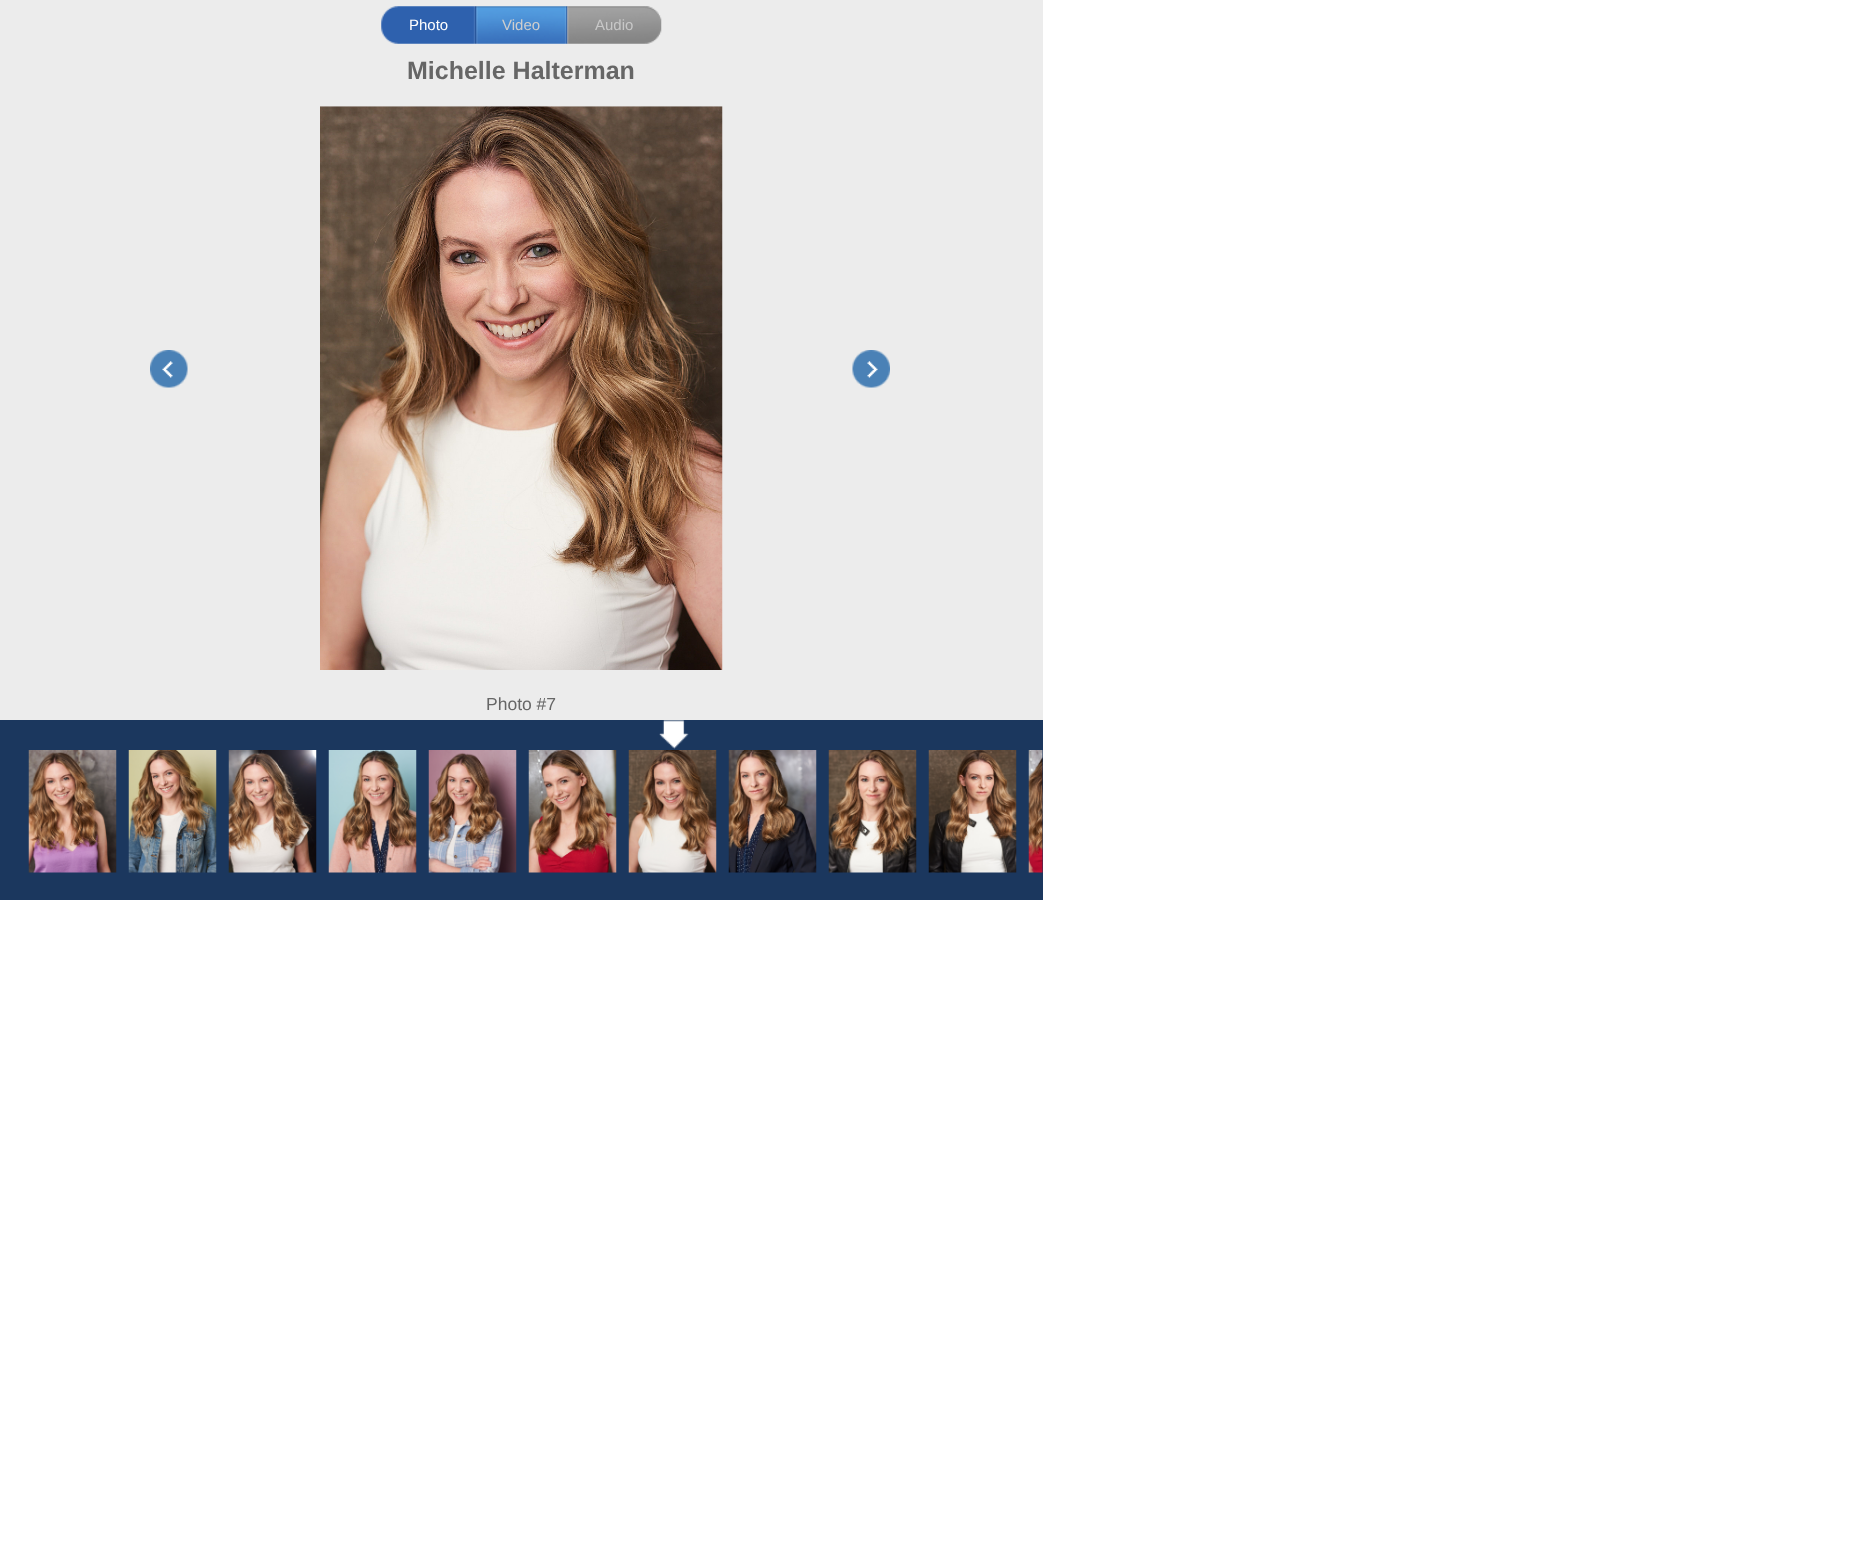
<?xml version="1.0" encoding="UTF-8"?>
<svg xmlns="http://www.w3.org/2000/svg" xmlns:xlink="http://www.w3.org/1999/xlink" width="1873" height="1547">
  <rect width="100%" height="100%" fill="#ffffff" />
  <rect width="1043" height="720" fill="#ececec" />
  <image x="381" y="6" width="94" height="38" xlink:href="image1.png" />
  <image x="475" y="6" width="93" height="38" xlink:href="image2.png" />
  <image x="567" y="6" width="95" height="38" xlink:href="image3.png" />
  <image x="150" y="350" width="38" height="38" xlink:href="image4.png" />
  <image x="320" y="106" width="403" height="564" xlink:href="image5.png" />
  <image x="852" y="350" width="38" height="38" xlink:href="image6.png" />
  <rect y="720" width="1043" height="180" fill="#1b375e" />
  <image x="659" y="720" width="30" height="29" xlink:href="image7.png" />
  <image x="28" y="750" width="89" height="123" xlink:href="image8.png" />
  <image x="128" y="750" width="89" height="123" xlink:href="image9.png" />
  <image x="228" y="750" width="89" height="123" xlink:href="image10.png" />
  <image x="328" y="750" width="89" height="123" xlink:href="image11.png" />
  <image x="428" y="750" width="89" height="123" xlink:href="image12.png" />
  <image x="528" y="750" width="89" height="123" xlink:href="image13.png" />
  <image x="628" y="750" width="89" height="123" xlink:href="image14.png" />
  <image x="728" y="750" width="89" height="123" xlink:href="image15.png" />
  <image x="828" y="750" width="89" height="123" xlink:href="image16.png" />
  <image x="928" y="750" width="89" height="123" xlink:href="image17.png" />
  <image x="1028" y="750" width="15" height="123" xlink:href="image18.png" />
  <text x="409" y="30" style="font-family: Liberation Sans; font-size: 15px; fill: #ffffff">Photo</text>
  <text x="502" y="30" style="font-family: Liberation Sans; font-size: 15px; fill: #cecece">Video</text>
  <text x="595" y="30" style="font-family: Liberation Sans; font-size: 15px; fill: #c8c8c8">Audio</text>
  <text x="407" y="79" style="font-family: Liberation Sans; font-size: 25px; font-weight: bold; fill: #666666">Michelle Halterman</text>
  <text x="486" y="710" style="font-family: Liberation Sans; font-size: 17.5px; fill: #666666">Photo #7</text>
</svg>
